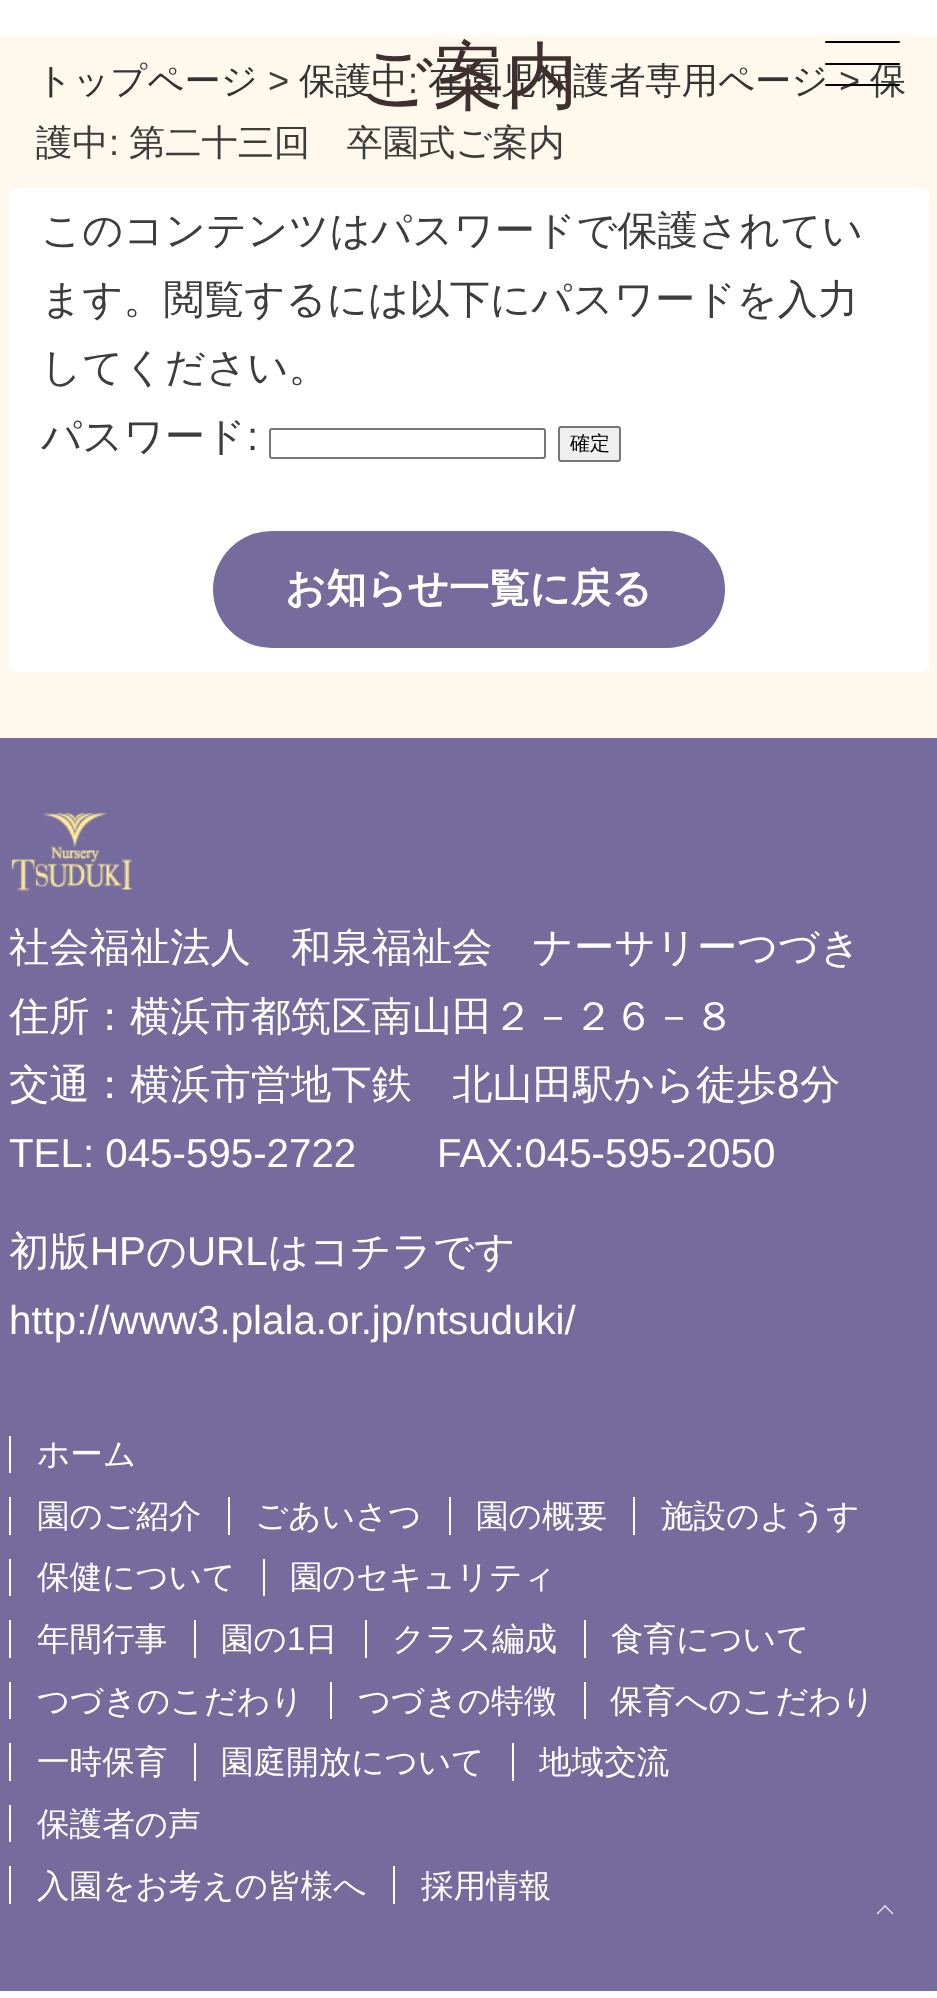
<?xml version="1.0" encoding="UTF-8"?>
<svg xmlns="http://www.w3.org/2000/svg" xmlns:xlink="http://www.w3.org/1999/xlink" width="937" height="1998">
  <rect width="100%" height="100%" fill="#ffffff" />
  <rect y="35" width="937" height="703" fill="#fff8ed" />
  <rect x="9" y="188" width="920" height="484" rx="8" fill="#ffffff" />
  <rect x="270" y="429" width="275" height="29" rx="2" fill="none" stroke="#767676" stroke-width="2" />
  <rect x="559" y="427" width="61" height="34" rx="2" fill="#efefef" stroke="#767676" stroke-width="2" />
  <rect x="213" y="531" width="512" height="117" rx="58.5" fill="#756c9d" />
  <rect x="825" y="41" width="75" height="2" rx="1" fill="#000000" />
  <rect y="738" width="937" height="1253" fill="#756c9d" />
  <image x="11" y="813" width="122" height="79" xlink:href="image1.png" />
  <rect x="9" y="1436" width="2" height="37" fill="#ffffff" />
  <rect x="9" y="1497" width="2" height="38" fill="#ffffff" />
  <rect x="228" y="1497" width="2" height="38" fill="#ffffff" />
  <rect x="449" y="1497" width="2" height="38" fill="#ffffff" />
  <rect x="633" y="1497" width="2" height="38" fill="#ffffff" />
  <rect x="9" y="1559" width="2" height="37" fill="#ffffff" />
  <rect x="263" y="1559" width="2" height="37" fill="#ffffff" />
  <rect x="9" y="1620" width="2" height="38" fill="#ffffff" />
  <rect x="194" y="1620" width="2" height="38" fill="#ffffff" />
  <rect x="365" y="1620" width="2" height="38" fill="#ffffff" />
  <rect x="584" y="1620" width="2" height="38" fill="#ffffff" />
  <rect x="9" y="1682" width="2" height="37" fill="#ffffff" />
  <rect x="330" y="1682" width="2" height="37" fill="#ffffff" />
  <rect x="584" y="1682" width="2" height="37" fill="#ffffff" />
  <rect x="9" y="1743" width="2" height="38" fill="#ffffff" />
  <rect x="194" y="1743" width="2" height="38" fill="#ffffff" />
  <rect x="512" y="1743" width="2" height="38" fill="#ffffff" />
  <rect x="9" y="1805" width="2" height="37" fill="#ffffff" />
  <rect x="9" y="1866" width="2" height="38" fill="#ffffff" />
  <rect x="393" y="1866" width="2" height="38" fill="#ffffff" />
  <path d="M 876.5 1913.5 l 8.5 -8.5 l 1 1 l -8.5 8.5 z" fill="#e3e2eb" />
  <path d="M 884 1906 l 1 -1 l 8.5 8.5 l -1 1 z" fill="#e3e2eb" />
  <text x="36" y="93" style="font-family: WenQuanYi Zen Hei; font-size: 36.25px; font-weight: 500; fill: #333333">トップページ</text>
  <text x="268" y="93" style="font-family: Liberation Sans; font-size: 36.25px; fill: #3d3d3d">&gt;</text>
  <text x="299" y="93" style="font-family: WenQuanYi Zen Hei; font-size: 36.25px; font-weight: 500; fill: #333333">保護中</text>
  <text x="408" y="93" style="font-family: Liberation Sans; font-size: 36.25px; fill: #333333">:</text>
  <text x="428" y="93" style="font-family: WenQuanYi Zen Hei; font-size: 36.25px; font-weight: 500; fill: #333333">在園児保護者専用ページ</text>
  <text x="359" y="101" style="font-family: WenQuanYi Zen Hei; font-size: 72.5px; font-weight: 500; fill: #402f2f">ご案内</text>
  <text x="839" y="93" style="font-family: Liberation Sans; font-size: 36.25px; fill: #3d3d3d">&gt;</text>
  <text x="870" y="93" style="font-family: WenQuanYi Zen Hei; font-size: 36.25px; font-weight: 500; fill: #3d3d3d">保</text>
  <text x="36" y="155" style="font-family: WenQuanYi Zen Hei; font-size: 36.25px; font-weight: 500; fill: #3d3d3d">護中</text>
  <text x="109" y="155" style="font-family: Liberation Sans; font-size: 36.25px; fill: #3d3d3d">:</text>
  <text x="129" y="155" style="font-family: WenQuanYi Zen Hei; font-size: 36.25px; font-weight: 500; fill: #3d3d3d">第二十三回　卒園式ご案内</text>
  <text x="41" y="244" style="font-family: WenQuanYi Zen Hei; font-size: 40.3px; font-weight: 500; fill: #3d3d3d">このコンテンツはパスワードで保護されてい</text>
  <text x="41" y="313" style="font-family: WenQuanYi Zen Hei; font-size: 40.3px; font-weight: 500; fill: #3d3d3d">ます。閲覧するには以下にパスワードを入力</text>
  <text x="41" y="381" style="font-family: WenQuanYi Zen Hei; font-size: 40.3px; font-weight: 500; fill: #3d3d3d">してください。</text>
  <text x="41" y="450" style="font-family: WenQuanYi Zen Hei; font-size: 40.3px; font-weight: 500; fill: #3d3d3d">パスワード</text>
  <text x="247" y="450" style="font-family: Liberation Sans; font-size: 40.3px; fill: #3d3d3d">:</text>
  <text x="570" y="450" style="font-family: WenQuanYi Zen Hei; font-size: 20px; font-weight: 500; fill: #000000">確定</text>
  <text x="285" y="602" style="font-family: WenQuanYi Zen Hei; font-size: 40.3px; font-weight: bold; fill: #ffffff">お知らせ一覧に戻る</text>
  <rect x="825" y="63" width="75" height="2" rx="1" fill="#000000" />
  <rect x="825" y="84" width="75" height="2" rx="1" fill="#000000" />
  <text x="9" y="961" style="font-family: WenQuanYi Zen Hei; font-size: 40.3px; font-weight: 500; fill: #ffffff">社会福祉法人　和泉福祉会　ナーサリーつづき</text>
  <text x="9" y="1030" style="font-family: WenQuanYi Zen Hei; font-size: 40.3px; font-weight: 500; fill: #ffffff">住所：横浜市都筑区南山田２－２６－８</text>
  <text x="9" y="1098" style="font-family: WenQuanYi Zen Hei; font-size: 40.3px; font-weight: 500; fill: #ffffff">交通：横浜市営地下鉄　北山田駅から徒歩</text>
  <text x="777" y="1098" style="font-family: Liberation Sans; font-size: 40.3px; fill: #ffffff">8</text>
  <text x="800" y="1098" style="font-family: WenQuanYi Zen Hei; font-size: 40.3px; font-weight: 500; fill: #ffffff">分</text>
  <text x="9" y="1167" style="font-family: Liberation Sans; font-size: 40.3px; fill: #ffffff">TEL: 045-595-2722</text>
  <text x="437" y="1167" style="font-family: Liberation Sans; font-size: 40.3px; fill: #ffffff">FAX:045-595-2050</text>
  <text x="9" y="1265" style="font-family: WenQuanYi Zen Hei; font-size: 40.3px; font-weight: 500; fill: #ffffff">初版</text>
  <text x="90" y="1265" style="font-family: Liberation Sans; font-size: 40.3px; fill: #ffffff">HP</text>
  <text x="146" y="1265" style="font-family: WenQuanYi Zen Hei; font-size: 40.3px; font-weight: 500; fill: #ffffff">の</text>
  <text x="187" y="1265" style="font-family: Liberation Sans; font-size: 40.3px; fill: #ffffff">URL</text>
  <text x="268" y="1265" style="font-family: WenQuanYi Zen Hei; font-size: 40.3px; font-weight: 500; fill: #ffffff">はコチラです</text>
  <text x="9" y="1334" style="font-family: Liberation Sans; font-size: 40.3px; fill: #ffffff">http://www3.plala.or.jp/ntsuduki/</text>
  <text x="37" y="1465" style="font-family: WenQuanYi Zen Hei; font-size: 32.6px; font-weight: 500; fill: #ffffff">ホーム</text>
  <text x="37" y="1527" style="font-family: WenQuanYi Zen Hei; font-size: 32.6px; font-weight: 500; fill: #ffffff">園のご紹介</text>
  <text x="255" y="1527" style="font-family: WenQuanYi Zen Hei; font-size: 32.6px; font-weight: 500; fill: #ffffff">ごあいさつ</text>
  <text x="476" y="1527" style="font-family: WenQuanYi Zen Hei; font-size: 32.6px; font-weight: 500; fill: #ffffff">園の概要</text>
  <text x="661" y="1527" style="font-family: WenQuanYi Zen Hei; font-size: 32.6px; font-weight: 500; fill: #ffffff">施設のようす</text>
  <text x="37" y="1588" style="font-family: WenQuanYi Zen Hei; font-size: 32.6px; font-weight: 500; fill: #ffffff">保健について</text>
  <text x="290" y="1588" style="font-family: WenQuanYi Zen Hei; font-size: 32.6px; font-weight: 500; fill: #ffffff">園のセキュリティ</text>
  <text x="37" y="1650" style="font-family: WenQuanYi Zen Hei; font-size: 32.6px; font-weight: 500; fill: #ffffff">年間行事</text>
  <text x="221" y="1650" style="font-family: WenQuanYi Zen Hei; font-size: 32.6px; font-weight: 500; fill: #ffffff">園の</text>
  <text x="287" y="1650" style="font-family: Liberation Sans; font-size: 32.6px; fill: #ffffff">1</text>
  <text x="305" y="1650" style="font-family: WenQuanYi Zen Hei; font-size: 32.6px; font-weight: 500; fill: #ffffff">日</text>
  <text x="392" y="1650" style="font-family: WenQuanYi Zen Hei; font-size: 32.6px; font-weight: 500; fill: #ffffff">クラス編成</text>
  <text x="611" y="1650" style="font-family: WenQuanYi Zen Hei; font-size: 32.6px; font-weight: 500; fill: #ffffff">食育について</text>
  <text x="37" y="1712" style="font-family: WenQuanYi Zen Hei; font-size: 32.6px; font-weight: 500; fill: #ffffff">つづきのこだわり</text>
  <text x="358" y="1712" style="font-family: WenQuanYi Zen Hei; font-size: 32.6px; font-weight: 500; fill: #ffffff">つづきの特徴</text>
  <text x="610" y="1712" style="font-family: WenQuanYi Zen Hei; font-size: 32.6px; font-weight: 500; fill: #ffffff">保育へのこだわり</text>
  <text x="37" y="1773" style="font-family: WenQuanYi Zen Hei; font-size: 32.6px; font-weight: 500; fill: #ffffff">一時保育</text>
  <text x="221" y="1773" style="font-family: WenQuanYi Zen Hei; font-size: 32.6px; font-weight: 500; fill: #ffffff">園庭開放について</text>
  <text x="539" y="1773" style="font-family: WenQuanYi Zen Hei; font-size: 32.6px; font-weight: 500; fill: #ffffff">地域交流</text>
  <text x="37" y="1835" style="font-family: WenQuanYi Zen Hei; font-size: 32.6px; font-weight: 500; fill: #ffffff">保護者の声</text>
  <text x="37" y="1897" style="font-family: WenQuanYi Zen Hei; font-size: 32.6px; font-weight: 500; fill: #ffffff">入園をお考えの皆様へ</text>
  <text x="421" y="1897" style="font-family: WenQuanYi Zen Hei; font-size: 32.6px; font-weight: 500; fill: #ffffff">採用情報</text>
</svg>
